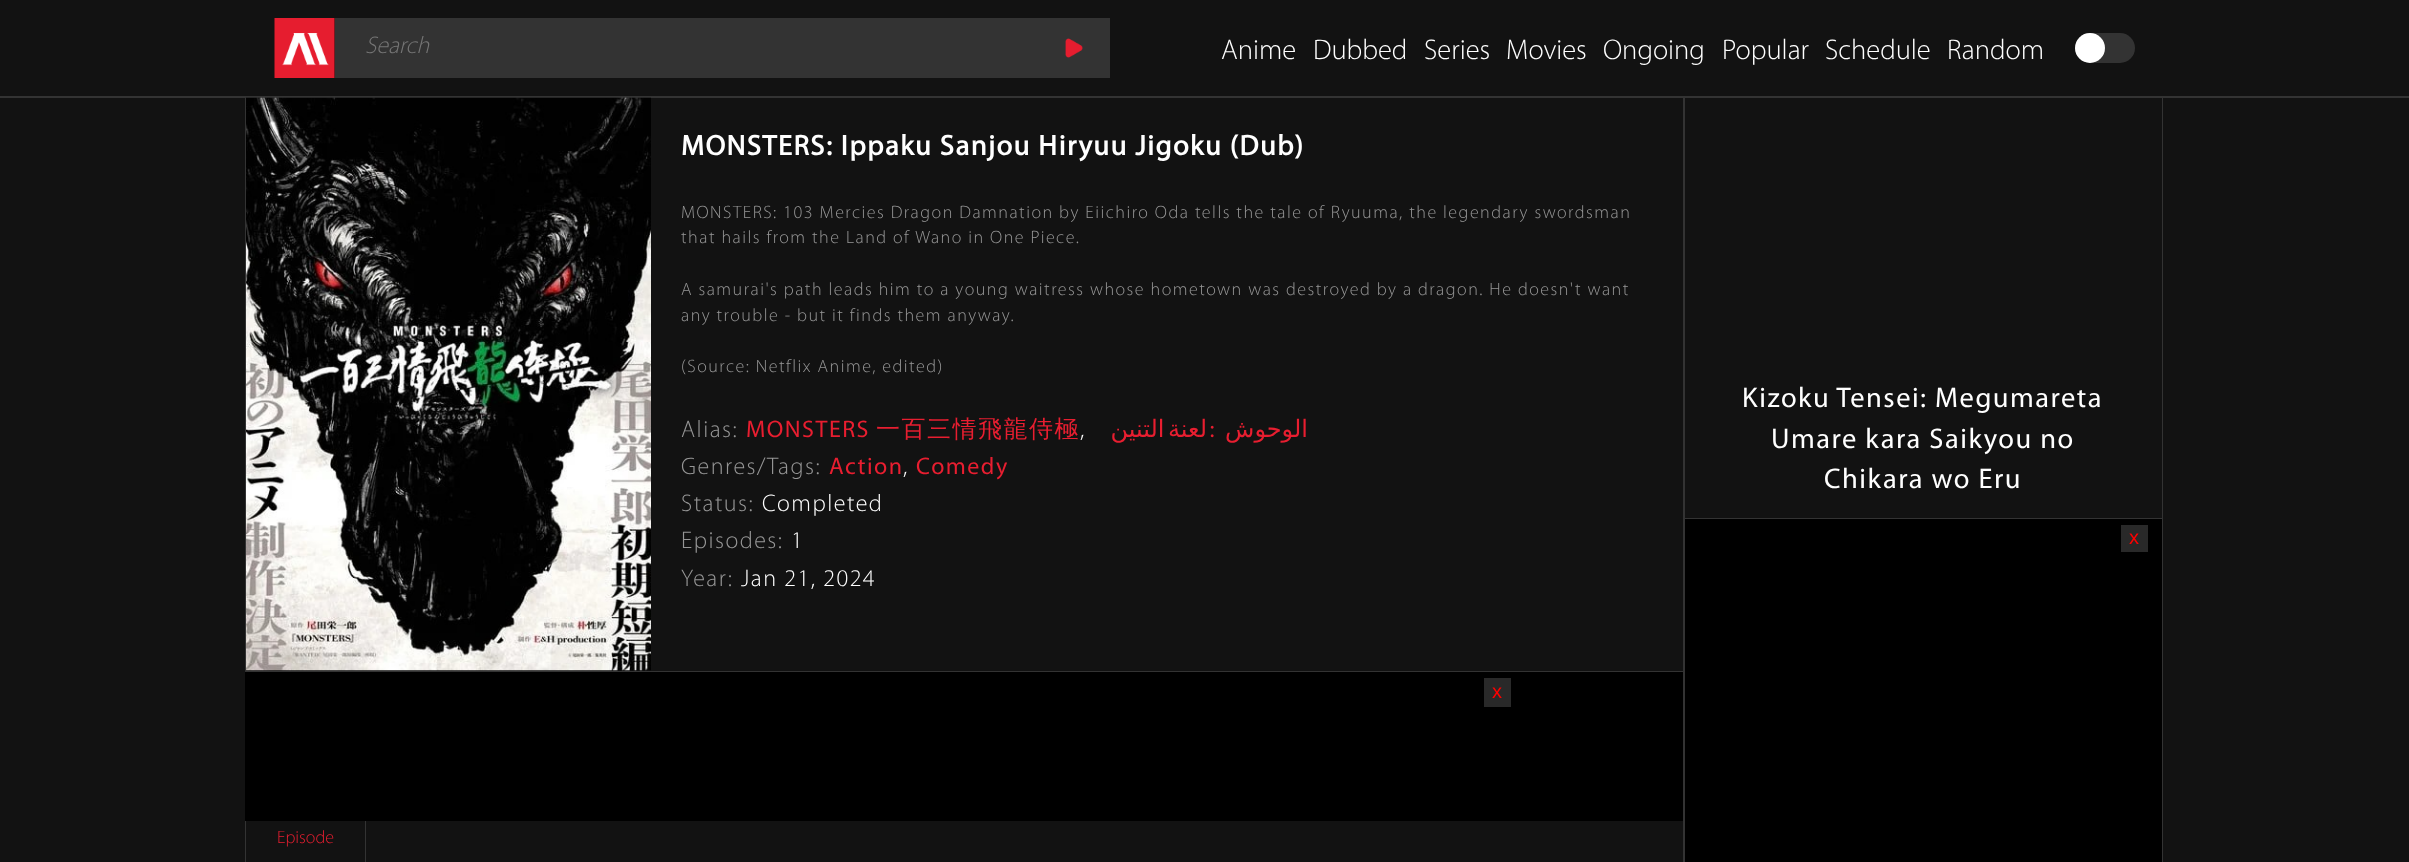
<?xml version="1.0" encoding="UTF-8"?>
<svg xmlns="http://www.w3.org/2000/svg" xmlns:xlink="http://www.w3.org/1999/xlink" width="2409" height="862">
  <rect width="100%" height="100%" fill="#333333" />
  <rect width="2409" height="96" fill="#121212" />
  <image x="274" y="18" width="61" height="60" xlink:href="image1.png" />
  <rect x="335" y="18" width="775" height="60" fill="#333333" />
  <image x="1065" y="38" width="18" height="20" xlink:href="image2.png" />
  <rect x="2075" y="33" width="60" height="30" rx="15" fill="#333333" />
  <circle cx="2090" cy="48" r="15" fill="#ffffff" />
  <rect y="98" width="2409" height="764" fill="#121212" />
  <rect x="245" y="98" width="1918" height="764" fill="#333333" />
  <rect x="246" y="98" width="1437" height="573" fill="#121212" />
  <image x="246" y="97" width="405" height="574" xlink:href="image3.png" />
  <rect x="245" y="672" width="1438" height="149" fill="#000000" />
  <rect x="1484" y="678" width="27" height="29" fill="#292929" />
  <rect x="366" y="821" width="1317" height="41" fill="#121212" />
  <rect x="246" y="821" width="119" height="41" fill="#121212" />
  <rect x="1685" y="98" width="477" height="420" fill="#121212" />
  <rect x="1685" y="519" width="477" height="343" fill="#000000" />
  <rect x="2121" y="525" width="27" height="27" fill="#292929" />
  <text x="365" y="53" style="font-family: Myriad; font-size: 24px; font-weight: 300; font-style: italic; fill: #757575">Search</text>
  <text x="1221" y="59" style="font-family: Myriad; font-size: 28.5px; font-weight: 300; fill: #ffffff">Anime</text>
  <text x="1313" y="59" style="font-family: Myriad; font-size: 28.5px; font-weight: 300; fill: #ffffff">Dubbed</text>
  <text x="1424" y="59" style="font-family: Myriad; font-size: 28.5px; font-weight: 300; fill: #ffffff">Series</text>
  <text x="1506" y="59" style="font-family: Myriad; font-size: 28.5px; font-weight: 300; fill: #ffffff">Movies</text>
  <text x="1603" y="59" style="font-family: Myriad; font-size: 28.5px; font-weight: 300; fill: #ffffff">Ongoing</text>
  <text x="1722" y="59" style="font-family: Myriad; font-size: 28.5px; font-weight: 300; fill: #ffffff">Popular</text>
  <text x="1825" y="59" style="font-family: Myriad; font-size: 28.5px; font-weight: 300; fill: #ffffff">Schedule</text>
  <text x="1947" y="59" style="font-family: Myriad; font-size: 28.5px; font-weight: 300; fill: #ffffff">Random</text>
  <text x="681" y="155" style="font-family: Myriad; font-size: 28.5px; font-weight: bold; letter-spacing: 1.5px; fill: #ffffff">MONSTERS: Ippaku Sanjou Hiryuu Jigoku (Dub)</text>
  <text x="681" y="218" style="font-family: Myriad; font-size: 18px; font-weight: 300; letter-spacing: 1.5px; fill: #969696">MONSTERS: 103 Mercies Dragon Damnation by Eiichiro Oda tells the tale of Ryuuma, the legendary swordsman</text>
  <text x="681" y="243" style="font-family: Myriad; font-size: 18px; font-weight: 300; letter-spacing: 1.5px; fill: #969696">that hails from the Land of Wano in One Piece.</text>
  <text x="681" y="295" style="font-family: Myriad; font-size: 18px; font-weight: 300; letter-spacing: 1.5px; fill: #969696">A samurai's path leads him to a young waitress whose hometown was destroyed by a dragon. He doesn't want</text>
  <text x="681" y="321" style="font-family: Myriad; font-size: 18px; font-weight: 300; letter-spacing: 1.5px; fill: #969696">any trouble - but it finds them anyway.</text>
  <text x="681" y="372" style="font-family: Myriad; font-size: 18px; font-weight: 300; letter-spacing: 1.5px; fill: #969696">(Source: Netflix Anime, edited)</text>
  <text x="681" y="437" style="font-family: Myriad; font-size: 24px; font-weight: 300; letter-spacing: 1.5px; fill: #969696">Alias:</text>
  <text x="746" y="437" style="font-family: Myriad; font-size: 24px; letter-spacing: 1.5px; fill: #e81e30">MONSTERS</text>
  <text x="876" y="437" style="font-family: WenQuanYi Zen Hei; font-size: 24px; font-weight: 500; letter-spacing: 1.5px; fill: #e81e30">一百三情飛龍侍極</text>
  <text x="1080" y="437" style="font-family: Myriad; font-size: 24px; font-weight: 300; letter-spacing: 1.5px; fill: #ffffff">,</text>
  <text x="1207" y="437" word-spacing="-4" style="font-family: DejaVu Sans; font-size: 24px; letter-spacing: 1.5px; direction: rtl; fill: #e81e30">لعنة التنين</text>
  <text x="1216" y="437" style="font-family: Myriad; font-size: 24px; letter-spacing: 1.5px; direction: rtl; fill: #e81e30">:</text>
  <text x="1308" y="437" style="font-family: DejaVu Sans; font-size: 24px; letter-spacing: 1.5px; direction: rtl; fill: #e81e30">الوحوش</text>
  <text x="681" y="474" style="font-family: Myriad; font-size: 24px; font-weight: 300; letter-spacing: 1.5px; fill: #969696">Genres/Tags:</text>
  <text x="829" y="474" style="font-family: Myriad; font-size: 24px; letter-spacing: 1.5px; fill: #e81e30">Action</text>
  <text x="903" y="474" style="font-family: Myriad; font-size: 24px; font-weight: 300; letter-spacing: 1.5px; fill: #ffffff">,</text>
  <text x="916" y="474" style="font-family: Myriad; font-size: 24px; letter-spacing: 1.5px; fill: #e81e30">Comedy</text>
  <text x="681" y="511" style="font-family: Myriad; font-size: 24px; font-weight: 300; letter-spacing: 1.5px; fill: #969696">Status:</text>
  <text x="762" y="511" style="font-family: Myriad; font-size: 24px; font-weight: 300; letter-spacing: 1.5px; fill: #ffffff">Completed</text>
  <text x="681" y="548" style="font-family: Myriad; font-size: 24px; font-weight: 300; letter-spacing: 1.5px; fill: #969696">Episodes:</text>
  <text x="791" y="548" style="font-family: Myriad; font-size: 24px; font-weight: 300; letter-spacing: 1.5px; fill: #ffffff">1</text>
  <text x="681" y="586" style="font-family: Myriad; font-size: 24px; font-weight: 300; letter-spacing: 1.5px; fill: #969696">Year:</text>
  <text x="741" y="586" style="font-family: Myriad; font-size: 24px; font-weight: 300; letter-spacing: 1.5px; fill: #ffffff">Jan 21, 2024</text>
  <text x="1492" y="698" style="font-family: Liberation Sans; font-size: 20px; fill: #ff0000">x</text>
  <text x="277" y="843" style="font-family: Myriad; font-size: 18px; font-weight: 300; fill: #e81e30">Episode</text>
  <text x="1742" y="407" style="font-family: Myriad; font-size: 28.5px; letter-spacing: 1.5px; fill: #ffffff">Kizoku Tensei: Megumareta</text>
  <text x="1771" y="448" style="font-family: Myriad; font-size: 28.5px; letter-spacing: 1.5px; fill: #ffffff">Umare kara Saikyou no</text>
  <text x="1824" y="488" style="font-family: Myriad; font-size: 28.5px; letter-spacing: 1.5px; fill: #ffffff">Chikara wo Eru</text>
  <text x="2129" y="544" style="font-family: Liberation Sans; font-size: 20px; fill: #ff0000">x</text>
</svg>
